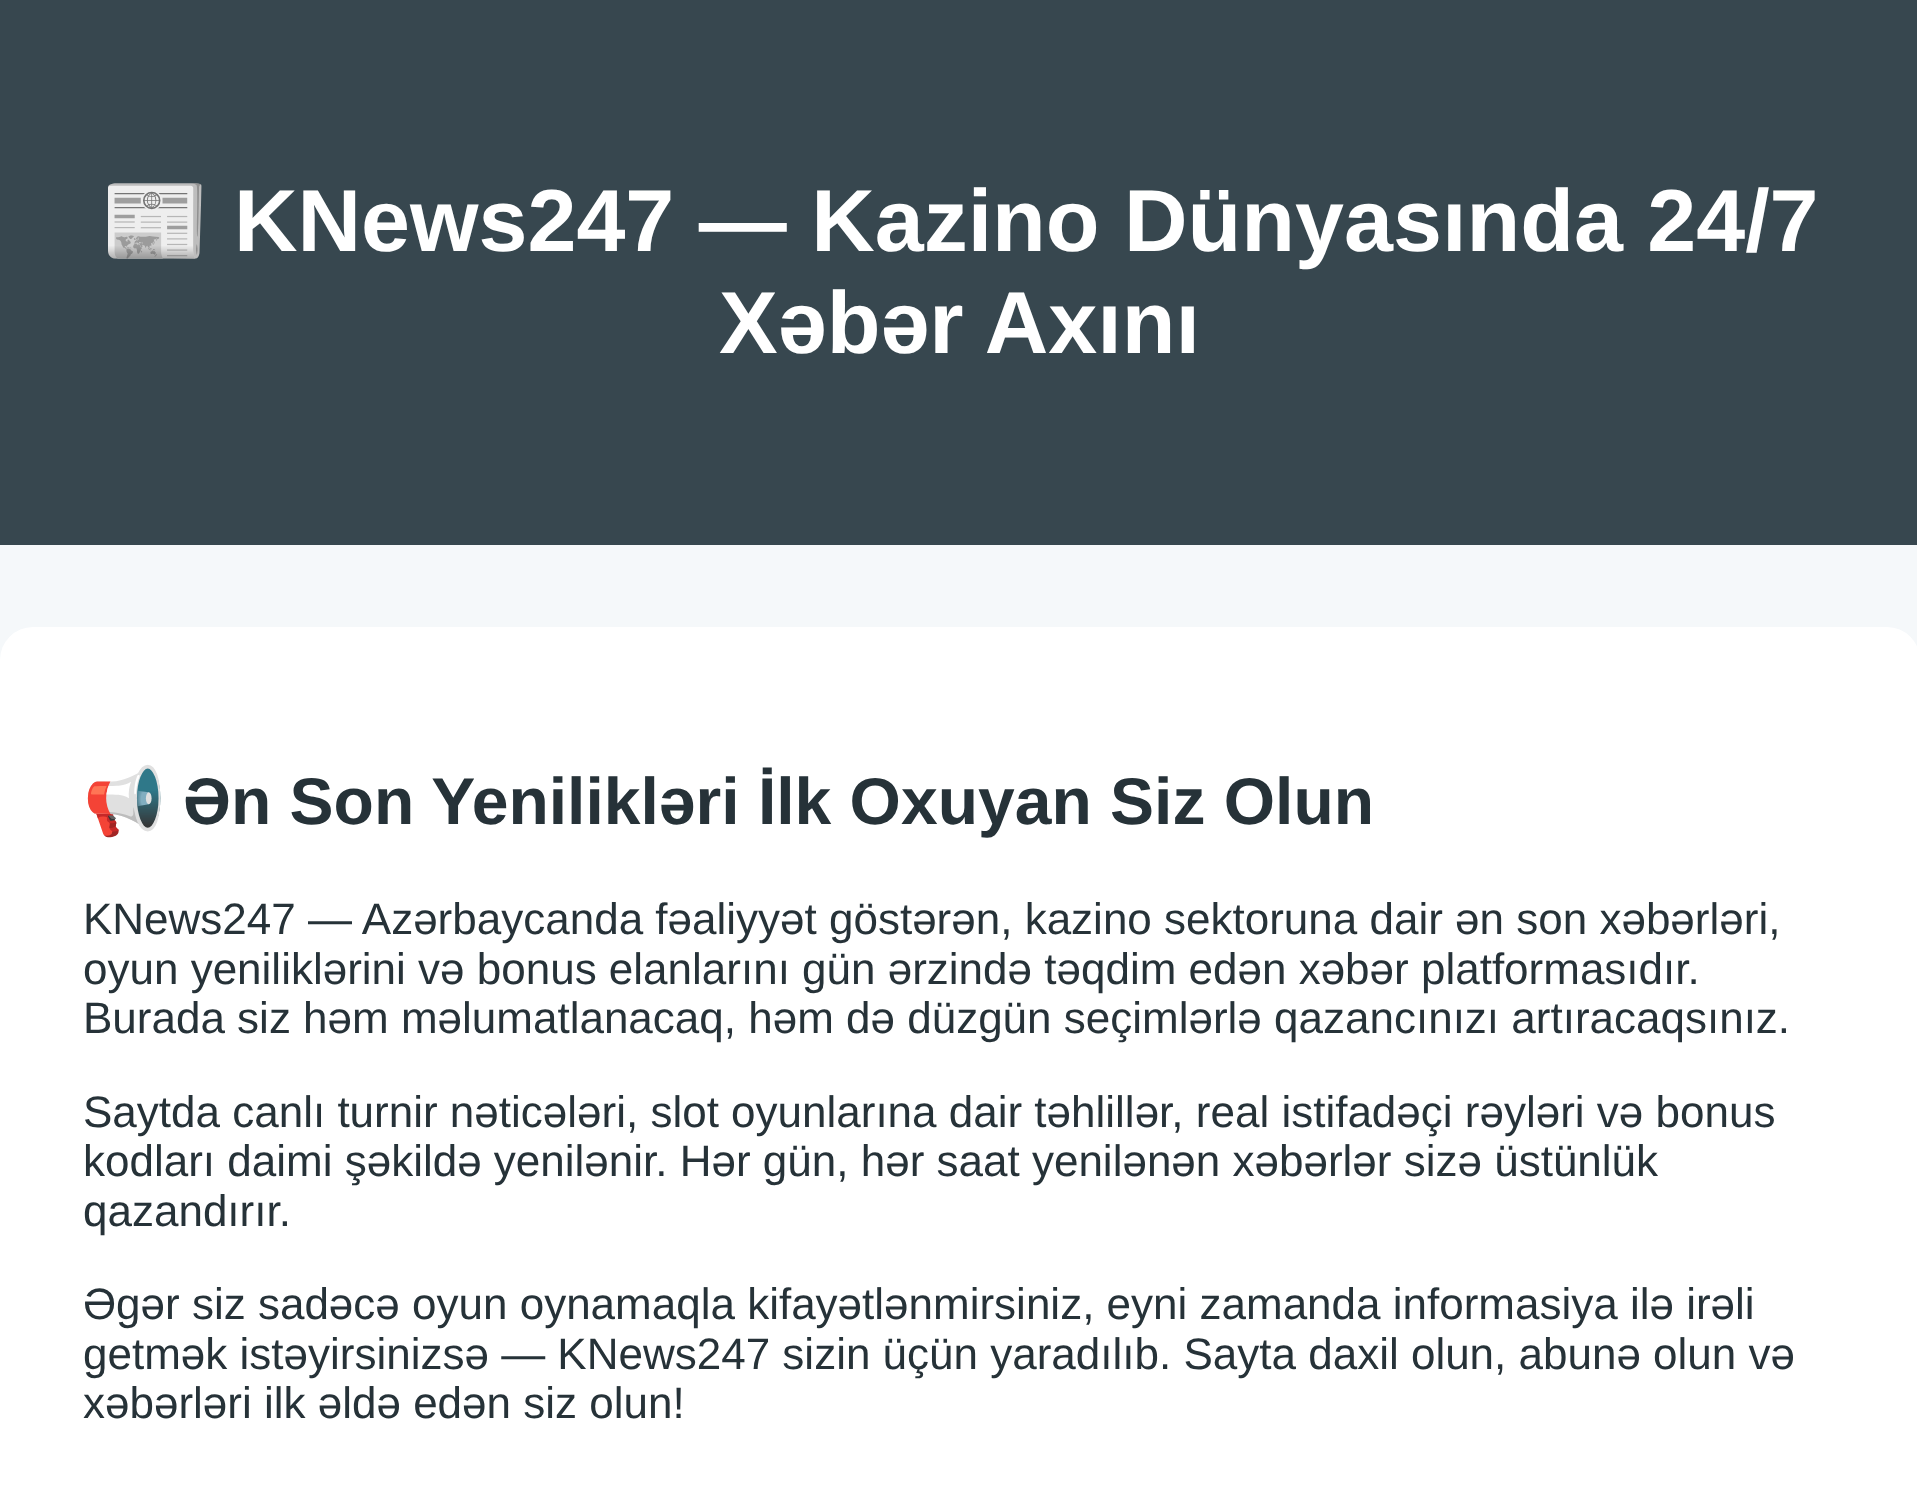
<?xml version="1.0" encoding="UTF-8"?>
<svg xmlns="http://www.w3.org/2000/svg" xmlns:xlink="http://www.w3.org/1999/xlink" width="1917" height="1512">
  <rect width="100%" height="100%" fill="#f5f8fa" />
  <rect width="1917" height="545" fill="#37474f" />
  <rect y="627" width="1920" height="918" rx="33" fill="#ffffff" />
  <text x="100" y="251" style="font-family: Noto Color Emoji; font-size: 88px; font-weight: bold; fill: #ffffff">📰</text>
  <text x="234" y="251" style="font-family: Liberation Sans; font-size: 88px; font-weight: bold; fill: #ffffff">KNews247 — Kazino Dünyasında 24/7</text>
  <text x="719" y="353" style="font-family: Liberation Sans; font-size: 88px; font-weight: bold; fill: #ffffff">Xəbər Axını</text>
  <text x="83" y="824" style="font-family: Noto Color Emoji; font-size: 66px; font-weight: bold; fill: #263238">📢</text>
  <text x="183" y="824" style="font-family: Liberation Sans; font-size: 66px; font-weight: bold; fill: #263238">Ən Son Yenilikləri İlk Oxuyan Siz Olun</text>
  <text x="83" y="934" style="font-family: Liberation Sans; font-size: 44px; fill: #263238">KNews247 — Azərbaycanda fəaliyyət göstərən, kazino sektoruna dair ən son xəbərləri,</text>
  <text x="83" y="984" style="font-family: Liberation Sans; font-size: 44px; fill: #263238">oyun yeniliklərini və bonus elanlarını gün ərzində təqdim edən xəbər platformasıdır.</text>
  <text x="83" y="1033" style="font-family: Liberation Sans; font-size: 44px; fill: #263238">Burada siz həm məlumatlanacaq, həm də düzgün seçimlərlə qazancınızı artıracaqsınız.</text>
  <text x="83" y="1127" style="font-family: Liberation Sans; font-size: 44px; fill: #263238">Saytda canlı turnir nəticələri, slot oyunlarına dair təhlillər, real istifadəçi rəyləri və bonus</text>
  <text x="83" y="1176" style="font-family: Liberation Sans; font-size: 44px; fill: #263238">kodları daimi şəkildə yenilənir. Hər gün, hər saat yenilənən xəbərlər sizə üstünlük</text>
  <text x="83" y="1226" style="font-family: Liberation Sans; font-size: 44px; fill: #263238">qazandırır.</text>
  <text x="83" y="1319" style="font-family: Liberation Sans; font-size: 44px; fill: #263238">Əgər siz sadəcə oyun oynamaqla kifayətlənmirsiniz, eyni zamanda informasiya ilə irəli</text>
  <text x="83" y="1369" style="font-family: Liberation Sans; font-size: 44px; fill: #263238">getmək istəyirsinizsə — KNews247 sizin üçün yaradılıb. Sayta daxil olun, abunə olun və</text>
  <text x="83" y="1418" style="font-family: Liberation Sans; font-size: 44px; fill: #263238">xəbərləri ilk əldə edən siz olun!</text>
</svg>
